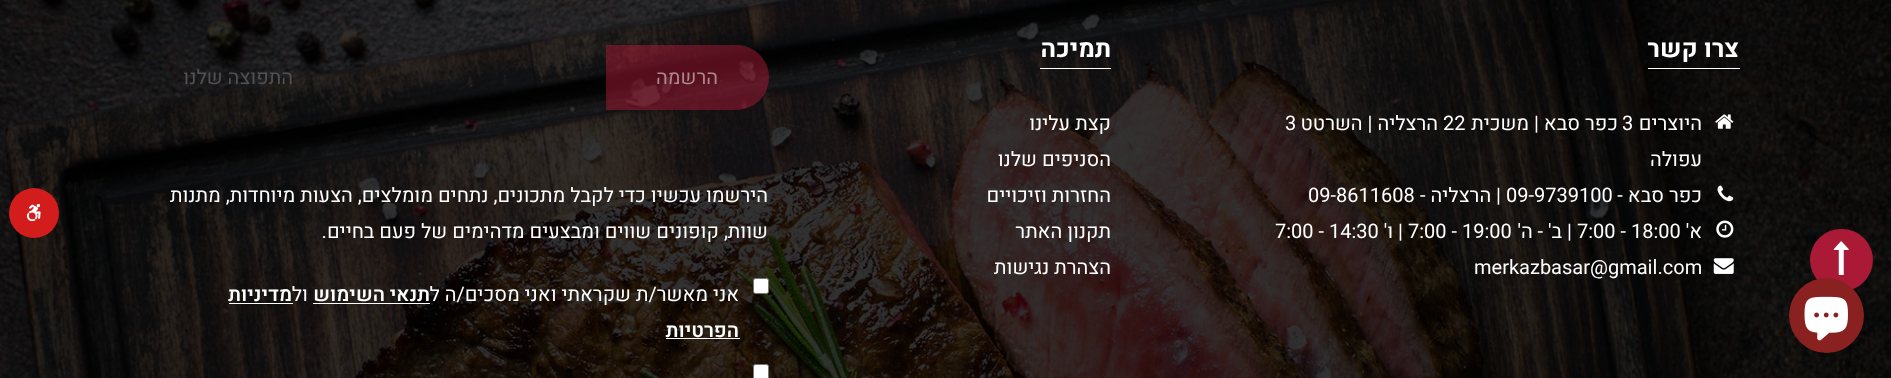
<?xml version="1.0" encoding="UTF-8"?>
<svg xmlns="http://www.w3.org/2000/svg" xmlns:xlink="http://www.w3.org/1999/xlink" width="1891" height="378">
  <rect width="100%" height="100%" fill="#ffffff" />
  <image x="0" y="0" width="1891" height="378" xlink:href="image1.png" />
  <rect x="1648" y="68" width="92" height="1" fill="#ffffff" />
  <image x="1715" y="114" width="19" height="15" xlink:href="image2.png" />
  <image x="1717" y="185" width="17" height="17" xlink:href="image3.png" />
  <image x="1716" y="220" width="18" height="18" xlink:href="image4.png" />
  <image x="1713" y="258" width="21" height="16" xlink:href="image5.png" />
  <rect x="1040" y="68" width="71" height="1" fill="#ffffff" />
  <path d="M 606 45 h 130.5 c 18 0 32.5 14.5 32.5 32.5 c 0 18 -14.5 32.5 -32.5 32.5 h -130.5 z" fill="#aa1936" fill-opacity="0.5" />
  <rect x="753.5" y="278.5" width="15" height="15" rx="2" fill="#ffffff" stroke="#767676" />
  <rect x="313" y="303" width="117" height="1" fill="#ffffff" />
  <rect x="229" y="303" width="64" height="1" fill="#ffffff" />
  <rect x="666" y="338" width="74" height="1" fill="#ffffff" />
  <rect x="753.5" y="364.5" width="15" height="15" rx="2" fill="#ffffff" stroke="#767676" />
  <circle cx="34" cy="213" r="25" fill="#d31d1d" />
  <image x="26" y="204" width="15" height="17" xlink:href="image6.png" />
  <rect x="1810" y="229" width="63" height="62" rx="31" fill="#aa1936" />
  <image x="1833" y="241" width="16" height="34" xlink:href="image7.png" />
  <circle cx="1826.5" cy="315.5" r="37.5" fill="#892121" />
  <image x="1804" y="296" width="44" height="45" xlink:href="image8.png" />
  <text x="1739" y="57" style="font-family: Heebo; font-size: 25px; font-weight: bold; direction: rtl; fill: #ffffff">צרו קשר</text>
  <text x="1702" y="130" style="font-family: Heebo; font-size: 20px; direction: rtl; fill: #ffffff">היוצרים</text>
  <text x="1622" y="130" style="font-family: Heebo; font-size: 20px; fill: #ffffff">3</text>
  <text x="1618" y="130" style="font-family: Heebo; font-size: 20px; direction: rtl; fill: #ffffff">כפר סבא | משכית</text>
  <text x="1443" y="130" style="font-family: Heebo; font-size: 20px; fill: #ffffff">22</text>
  <text x="1438" y="130" style="font-family: Heebo; font-size: 20px; direction: rtl; fill: #ffffff">הרצליה | השרטט</text>
  <text x="1285" y="130" style="font-family: Heebo; font-size: 20px; fill: #ffffff">3</text>
  <text x="1702" y="166" style="font-family: Heebo; font-size: 20px; direction: rtl; fill: #ffffff">עפולה</text>
  <text x="1702" y="202" style="font-family: Heebo; font-size: 20px; direction: rtl; fill: #ffffff">כפר סבא -</text>
  <text x="1506" y="202" style="font-family: Heebo; font-size: 20px; fill: #ffffff">09-9739100</text>
  <text x="1501" y="202" style="font-family: Heebo; font-size: 20px; direction: rtl; fill: #ffffff">| הרצליה -</text>
  <text x="1308" y="202" style="font-family: Heebo; font-size: 20px; fill: #ffffff">09-8611608</text>
  <text x="1702" y="238" style="font-family: Heebo; font-size: 20px; direction: rtl; fill: #ffffff">א'</text>
  <text x="1577" y="238" style="font-family: Heebo; font-size: 20px; fill: #ffffff">7:00 - 18:00</text>
  <text x="1572" y="238" style="font-family: Heebo; font-size: 20px; direction: rtl; fill: #ffffff">| ב' - ה'</text>
  <text x="1408" y="238" style="font-family: Heebo; font-size: 20px; fill: #ffffff">7:00 - 19:00</text>
  <text x="1403" y="238" style="font-family: Heebo; font-size: 20px; direction: rtl; fill: #ffffff">| ו'</text>
  <text x="1275" y="238" style="font-family: Heebo; font-size: 20px; fill: #ffffff">7:00 - 14:30</text>
  <text x="1474" y="274" style="font-family: Heebo; font-size: 20px; fill: #ffffff">merkazbasar@gmail.com</text>
  <text x="1111" y="57" style="font-family: Heebo; font-size: 25px; font-weight: bold; direction: rtl; fill: #ffffff">תמיכה</text>
  <text x="1111" y="130" style="font-family: Heebo; font-size: 20px; direction: rtl; fill: #ffffff">קצת עלינו</text>
  <text x="1111" y="166" style="font-family: Heebo; font-size: 20px; direction: rtl; fill: #ffffff">הסניפים שלנו</text>
  <text x="1111" y="202" style="font-family: Heebo; font-size: 20px; direction: rtl; fill: #ffffff">החזרות וזיכויים</text>
  <text x="1111" y="238" style="font-family: Heebo; font-size: 20px; direction: rtl; fill: #ffffff">תקנון האתר</text>
  <text x="1111" y="274" style="font-family: Heebo; font-size: 20px; direction: rtl; fill: #ffffff">הצהרת נגישות</text>
  <text x="718" y="84" style="font-family: Heebo; font-size: 20px; direction: rtl; fill: #ac888f">הרשמה</text>
  <text x="293" y="84" style="font-family: Heebo; font-size: 20px; direction: rtl; fill: #525152">התפוצה שלנו</text>
  <text x="768" y="202" style="font-family: Heebo; font-size: 20px; direction: rtl; fill: #ffffff">הירשמו עכשיו כדי לקבל מתכונים, נתחים מומלצים, הצעות מיוחדות, מתנות</text>
  <text x="768" y="238" style="font-family: Heebo; font-size: 20px; direction: rtl; fill: #ffffff">שוות, קופונים שווים ומבצעים מדהימים של פעם בחיים.</text>
  <text x="739" y="301" style="font-family: Heebo; font-size: 20px; direction: rtl; fill: #ffffff">אני מאשר/ת שקראתי ואני מסכים/ה ל</text>
  <text x="430" y="301" style="font-family: Heebo; font-size: 20px; font-weight: 600; direction: rtl; fill: #ffffff">תנאי השימוש</text>
  <text x="308" y="301" style="font-family: Heebo; font-size: 20px; direction: rtl; fill: #ffffff">ול</text>
  <text x="292" y="301" style="font-family: Heebo; font-size: 20px; font-weight: 600; direction: rtl; fill: #ffffff">מדיניות</text>
  <text x="739" y="337" style="font-family: Heebo; font-size: 20px; font-weight: 600; direction: rtl; fill: #ffffff">הפרטיות</text>
</svg>
